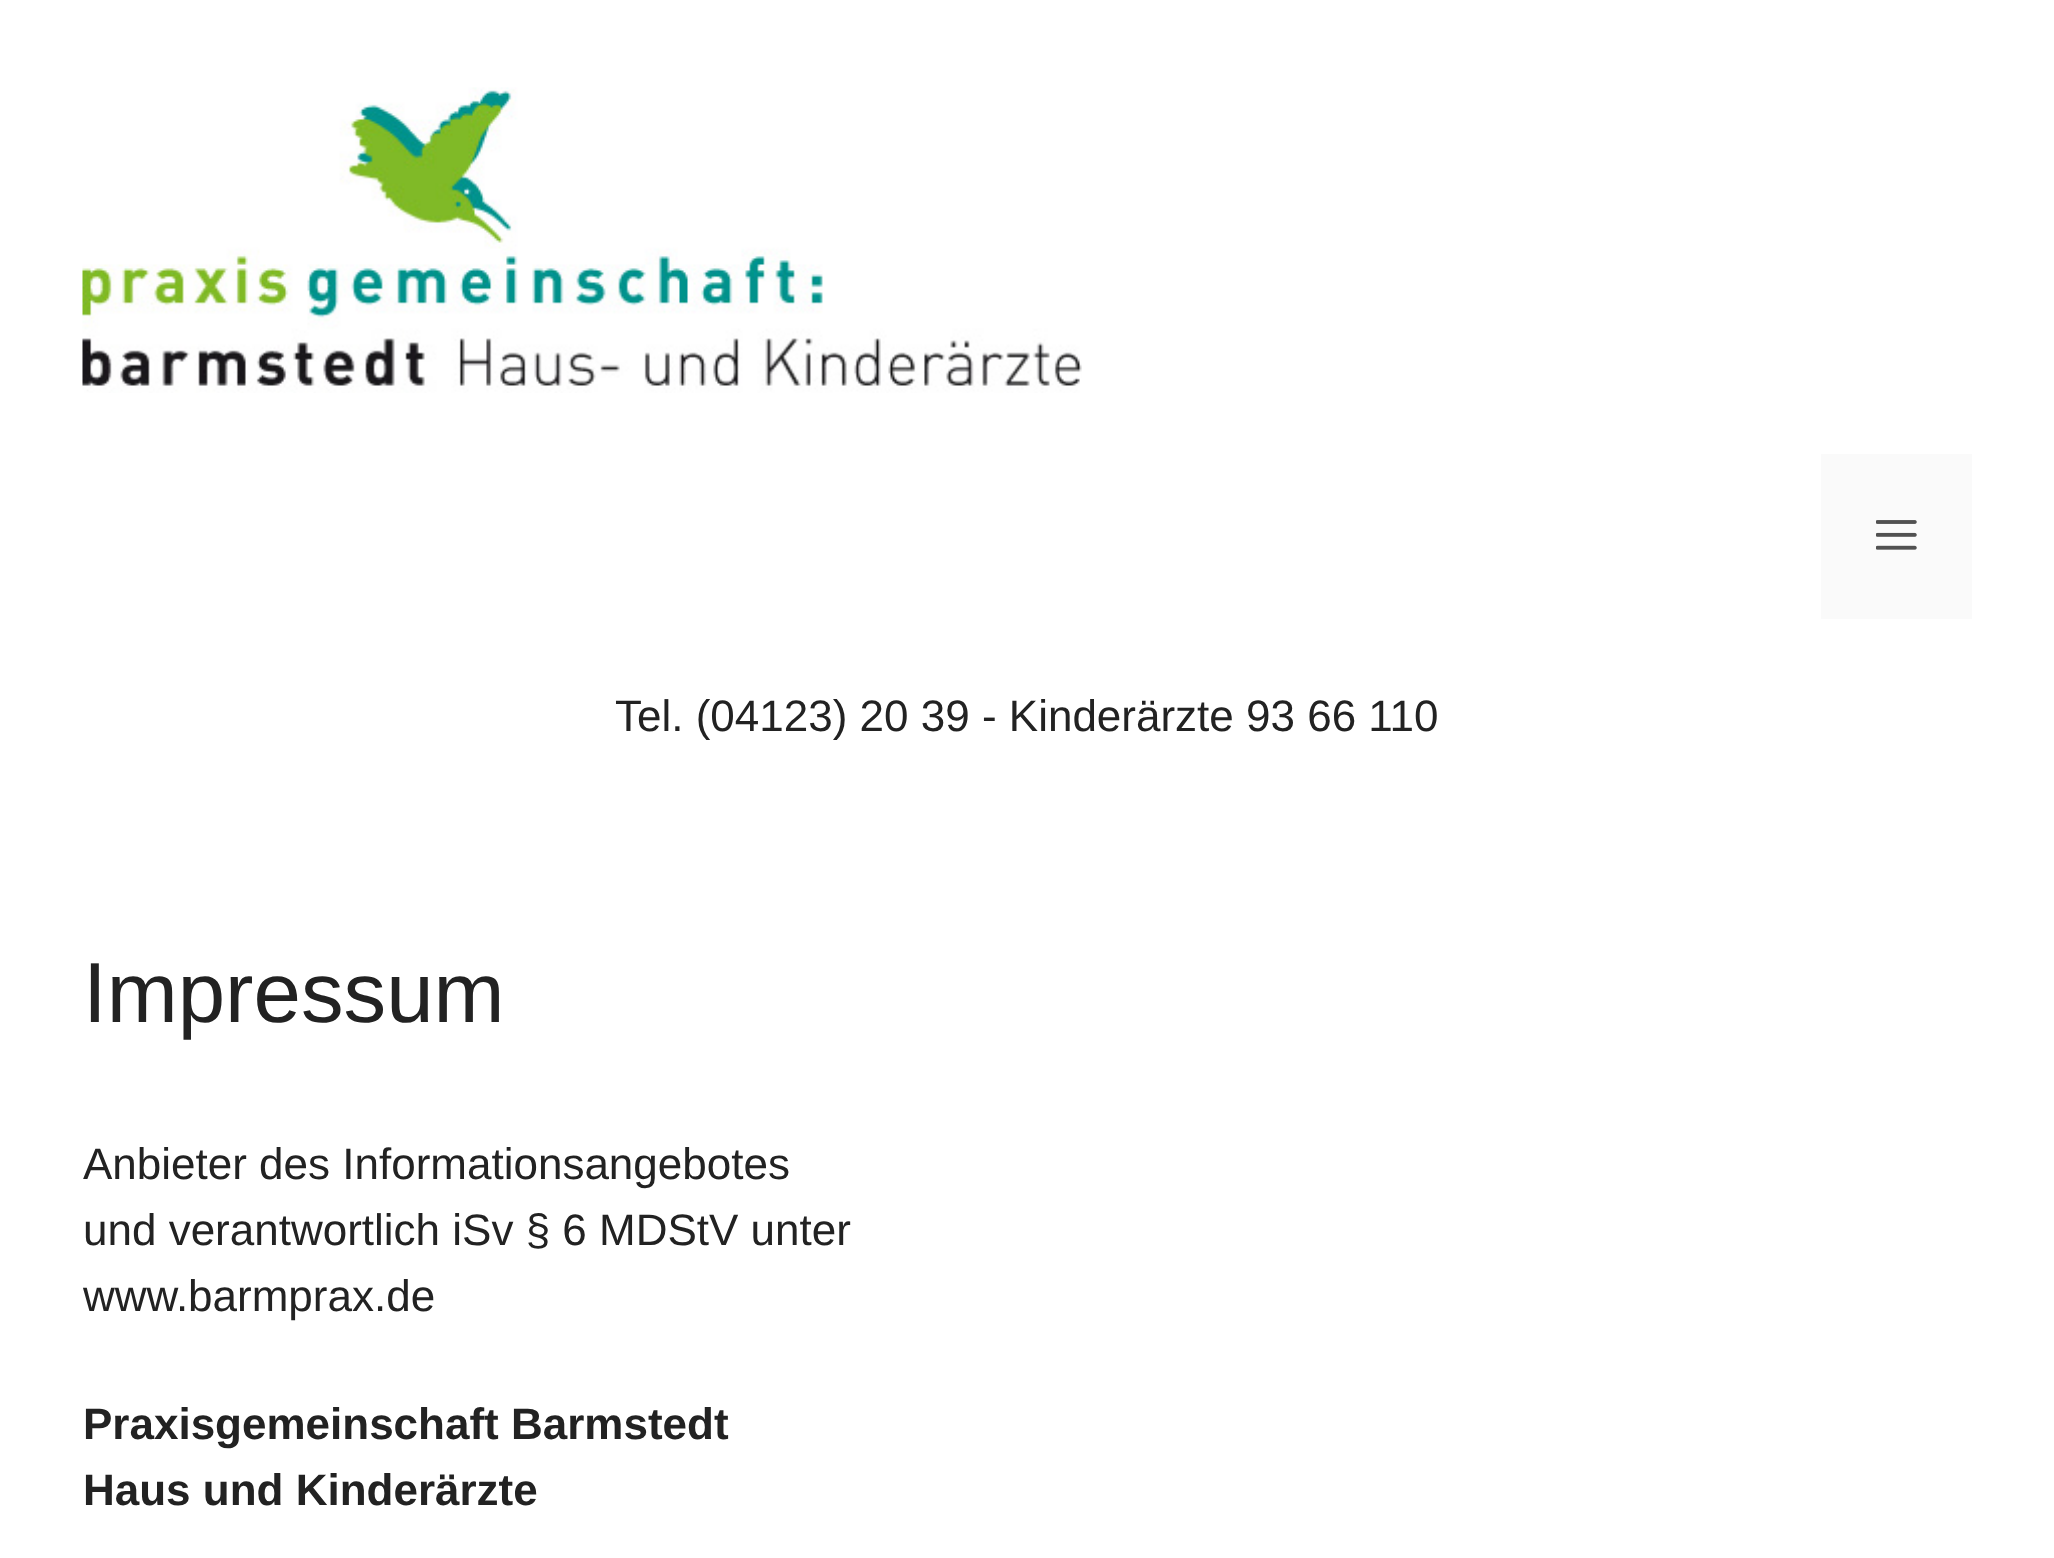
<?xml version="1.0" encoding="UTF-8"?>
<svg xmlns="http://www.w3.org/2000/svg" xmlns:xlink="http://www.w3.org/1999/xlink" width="2054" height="1558">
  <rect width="100%" height="100%" fill="#ffffff" />
  <image x="82" y="87" width="1000" height="306" xlink:href="image1.png" />
  <rect x="1821" y="454" width="151" height="165" fill="#fafafa" />
  <image x="1876" y="520" width="41" height="30" xlink:href="image2.png" />
  <text x="615" y="731" style="font-family: Liberation Sans; font-size: 44px; fill: #222222">Tel. (04123) 20 39 - Kinderärzte 93 66 110</text>
  <text x="83" y="1022" style="font-family: Liberation Sans; font-size: 85.25px; fill: #222222">Impressum</text>
  <text x="83" y="1179" style="font-family: Liberation Sans; font-size: 44px; fill: #222222">Anbieter des Informationsangebotes</text>
  <text x="83" y="1245" style="font-family: Liberation Sans; font-size: 44px; fill: #222222">und verantwortlich iSv § 6 MDStV unter</text>
  <text x="83" y="1311" style="font-family: Liberation Sans; font-size: 44px; fill: #222222">www.barmprax.de</text>
  <text x="83" y="1439" style="font-family: Liberation Sans; font-size: 44px; font-weight: bold; fill: #222222">Praxisgemeinschaft Barmstedt</text>
  <text x="83" y="1505" style="font-family: Liberation Sans; font-size: 44px; font-weight: bold; fill: #222222">Haus und Kinderärzte</text>
</svg>
